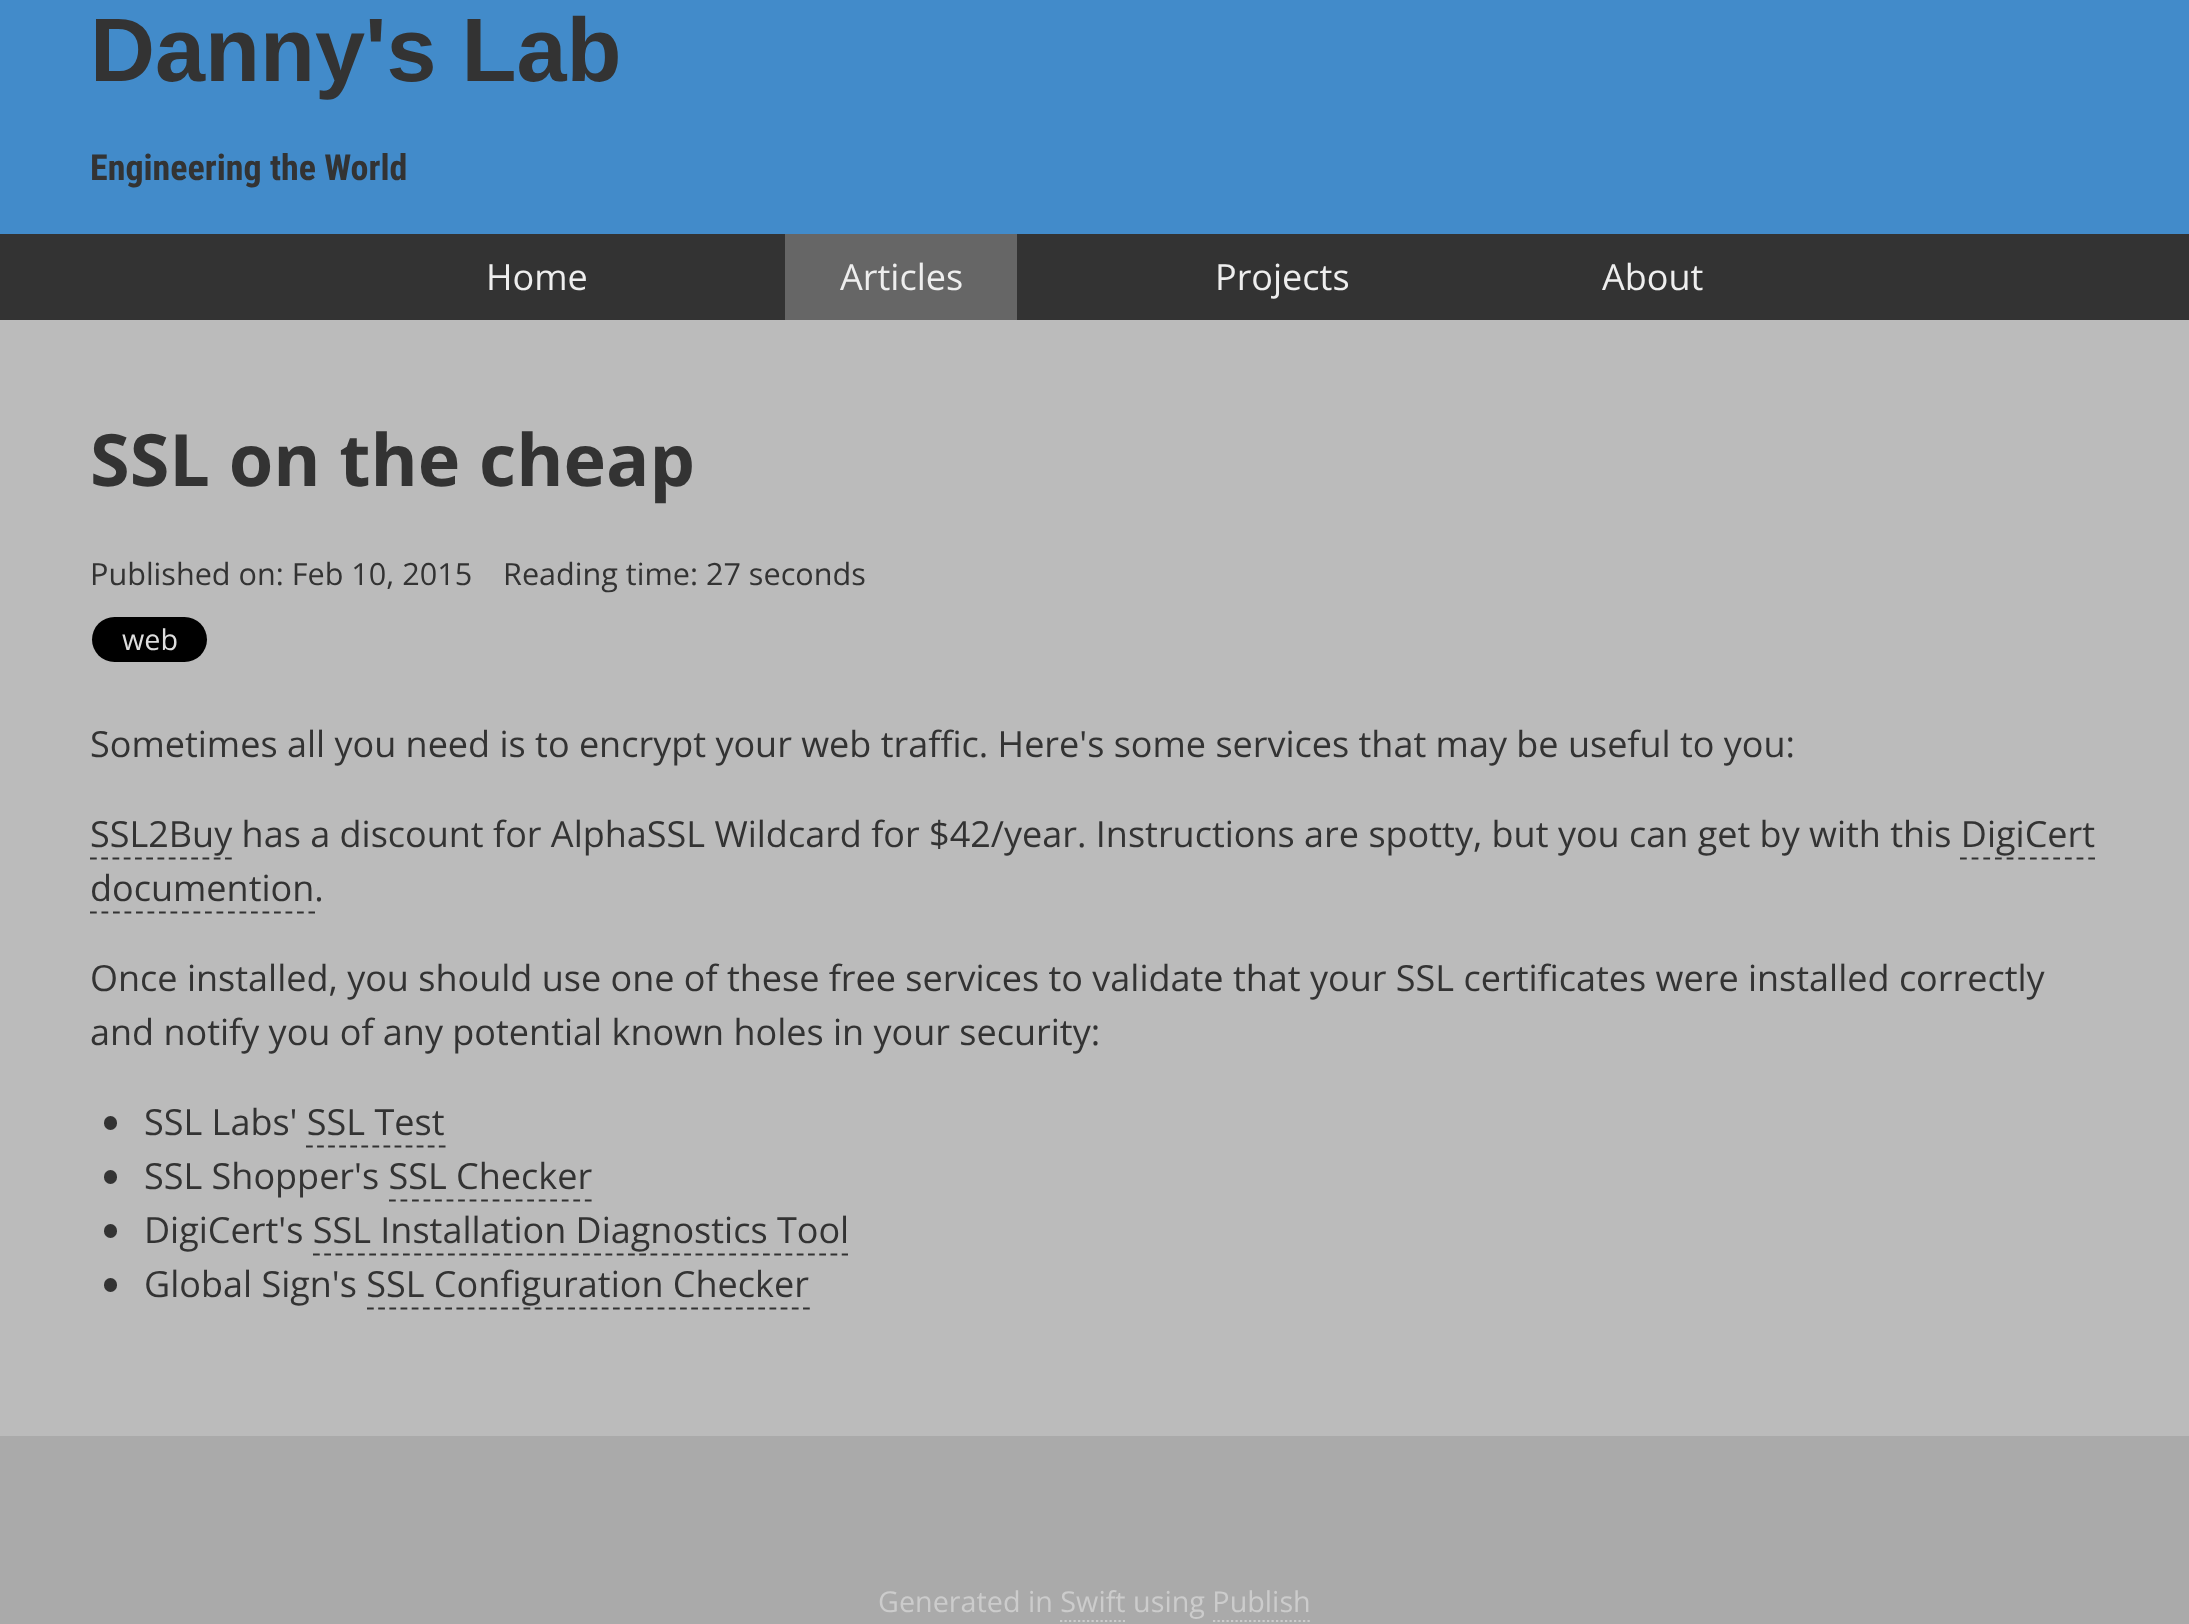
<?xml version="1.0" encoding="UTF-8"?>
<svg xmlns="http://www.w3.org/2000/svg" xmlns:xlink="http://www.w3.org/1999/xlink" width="2189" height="1624">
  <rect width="100%" height="100%" fill="#aaaaaa" />
  <rect width="2189" height="234" fill="#428bca" />
  <rect y="234" width="2189" height="86" fill="#333333" />
  <rect x="785" y="234" width="232" height="86" fill="#666666" />
  <rect y="320" width="2189" height="1116" fill="#bbbbbb" />
  <rect x="92" y="617" width="115" height="45" rx="22.5" fill="#000000" />
  <path d="M 90 858.5 h 142" fill="none" stroke="#333333" stroke-width="2.2" stroke-dasharray="6.75 4.5" />
  <path d="M 1960 858.5 h 135" fill="none" stroke="#333333" stroke-width="2.2" stroke-dasharray="6.75 4.91" />
  <path d="M 90 912.5 h 225" fill="none" stroke="#333333" stroke-width="2.2" stroke-dasharray="6.75 4.75" />
  <rect x="104" y="1116" width="13" height="14" rx="6.5" fill="#333333" />
  <path d="M 306 1146.5 h 139.5" fill="none" stroke="#333333" stroke-width="2.2" stroke-dasharray="6.75 4.32" />
  <rect x="104" y="1170" width="13" height="14" rx="6.5" fill="#333333" />
  <path d="M 389 1200.5 h 203" fill="none" stroke="#333333" stroke-width="2.2" stroke-dasharray="6.75 4.77" />
  <rect x="104" y="1224" width="13" height="14" rx="6.5" fill="#333333" />
  <path d="M 313 1254.5 h 535" fill="none" stroke="#333333" stroke-width="2.2" stroke-dasharray="6.75 4.5" />
  <rect x="104" y="1278" width="13" height="14" rx="6.5" fill="#333333" />
  <path d="M 367 1308.5 h 443" fill="none" stroke="#333333" stroke-width="2.2" stroke-dasharray="6.75 4.43" />
  <path d="M 1060 1621 h 65" fill="none" stroke="#cccccc" stroke-width="2.2" stroke-dasharray="2.25 2.25" />
  <path d="M 1213 1621 h 99" fill="none" stroke="#cccccc" stroke-width="2.2" stroke-dasharray="2.25 2.25" />
  <text x="90" y="81" style="font-family: Liberation Sans; font-size: 90px; font-weight: bold; fill: #333333">Danny's Lab</text>
  <text x="90" y="180" style="font-family: Roboto Condensed; font-size: 36px; font-weight: bold; fill: #333333">Engineering the World</text>
  <text x="486" y="290" style="font-family: Open Sans; font-size: 36px; fill: #eeeeee">Home</text>
  <text x="840" y="290" style="font-family: Open Sans; font-size: 36px; fill: #eeeeee">Articles</text>
  <text x="1215" y="290" style="font-family: Open Sans; font-size: 36px; fill: #eeeeee">Projects</text>
  <text x="1602" y="290" style="font-family: Open Sans; font-size: 36px; fill: #eeeeee">About</text>
  <text x="90" y="486" style="font-family: Open Sans; font-size: 72px; font-weight: bold; fill: #333333">SSL on the cheap</text>
  <text x="90" y="585" style="font-family: Open Sans; font-size: 30.6px; fill: #333333">Published on: Feb 10, 2015</text>
  <text x="503" y="585" style="font-family: Open Sans; font-size: 30.6px; fill: #333333">Reading time: 27 seconds</text>
  <text x="122" y="650" style="font-family: Open Sans; font-size: 28.75px; fill: #dddddd">web</text>
  <text x="90" y="757" style="font-family: Open Sans; font-size: 36px; fill: #333333">Sometimes all you need is to encrypt your web traffic. Here's some services that may be useful to you:</text>
  <text x="90" y="847" style="font-family: Open Sans; font-size: 36px; fill: #333333">SSL2Buy has a discount for AlphaSSL Wildcard for $42/year. Instructions are spotty, but you can get by with this DigiCert</text>
  <text x="90" y="901" style="font-family: Open Sans; font-size: 36px; fill: #333333">documention.</text>
  <text x="90" y="991" style="font-family: Open Sans; font-size: 36px; fill: #333333">Once installed, you should use one of these free services to validate that your SSL certificates were installed correctly</text>
  <text x="90" y="1045" style="font-family: Open Sans; font-size: 36px; fill: #333333">and notify you of any potential known holes in your security:</text>
  <text x="144" y="1135" style="font-family: Open Sans; font-size: 36px; fill: #333333">SSL Labs' SSL Test</text>
  <text x="144" y="1189" style="font-family: Open Sans; font-size: 36px; fill: #333333">SSL Shopper's SSL Checker</text>
  <text x="144" y="1243" style="font-family: Open Sans; font-size: 36px; fill: #333333">DigiCert's SSL Installation Diagnostics Tool</text>
  <text x="144" y="1297" style="font-family: Open Sans; font-size: 36px; fill: #333333">Global Sign's SSL Configuration Checker</text>
  <text x="878" y="1612" style="font-family: Open Sans; font-size: 28.75px; fill: #cccccc">Generated in Swift using Publish</text>
</svg>
